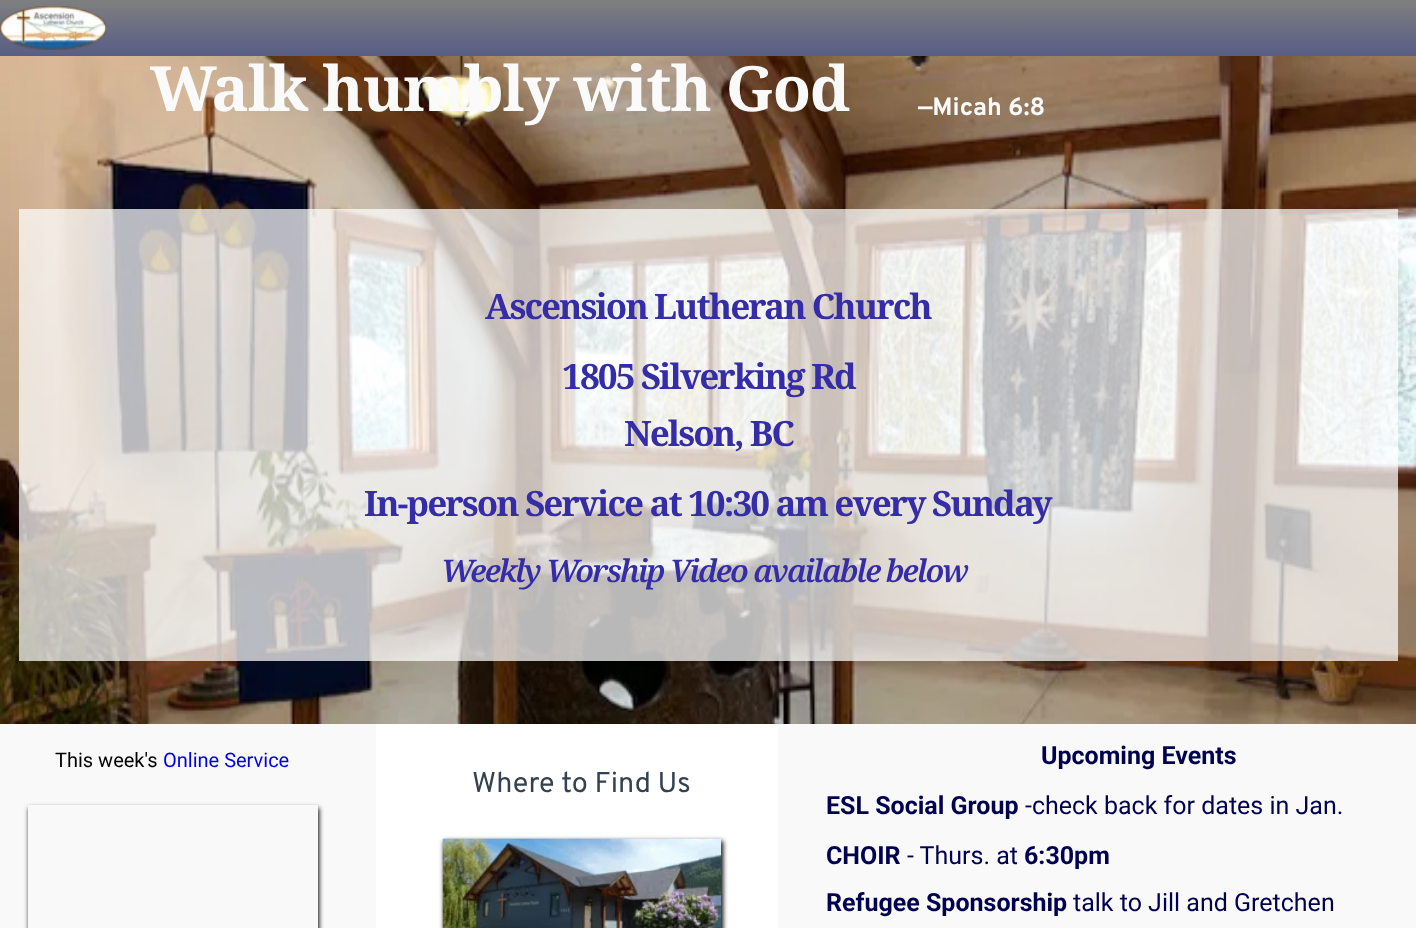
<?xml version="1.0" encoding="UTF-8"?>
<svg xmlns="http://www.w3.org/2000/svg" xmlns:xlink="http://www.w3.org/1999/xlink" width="1416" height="928">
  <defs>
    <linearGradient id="g1" gradientUnits="userSpaceOnUse" x1="708" y1="56" x2="708" y2="0"><stop offset="0" stop-color="#585d86" /><stop offset="1" stop-color="#7f7f7f" /></linearGradient>
    <clipPath id="clip1"><path d="M 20 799 h 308 v 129 h -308 z m 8 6 h 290 v 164 h -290 z" clip-rule="evenodd" /></clipPath>
  </defs>
  <rect width="100%" height="100%" fill="#ffffff" />
  <rect width="1416" height="56" fill="url(#g1)" />
  <image x="0" y="6" width="107" height="44" xlink:href="image1.png" />
  <image x="0" y="56" width="1416" height="668" xlink:href="image2.png" />
  <rect x="19" y="209" width="1379" height="452" fill="#ffffff" fill-opacity="0.72" />
  <rect y="724" width="376" height="204" fill="#f9f9f9" />
  <g clip-path="url(#clip1)">
    <rect x="29" y="808" width="290" height="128" fill="#000000" filter="blur(2.5px)" />
  </g>
  <rect x="778" y="724" width="638" height="204" fill="#f9f9f9" />
  <rect x="444" y="841" width="279" height="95" fill="#000000" filter="blur(2.5px)" />
  <image x="442" y="838" width="280" height="90" xlink:href="image3.png" />
  <text x="150" y="111" style="font-family: Noto Serif; font-size: 62.5px; font-weight: bold; letter-spacing: -1.25px; fill: #fafafa">Walk humbly with God</text>
  <text x="918" y="115" style="font-family: Overpass; font-size: 25px; font-weight: bold; fill: #fafafa">—Micah 6:8</text>
  <text x="485" y="319" style="font-family: Noto Serif; font-size: 35px; font-weight: bold; letter-spacing: -1.9px; fill: #342da7">Ascension Lutheran Church</text>
  <text x="562" y="389" style="font-family: Noto Serif; font-size: 35px; font-weight: bold; letter-spacing: -1.9px; fill: #342da7">1805 Silverking Rd</text>
  <text x="624" y="446" style="font-family: Noto Serif; font-size: 35px; font-weight: bold; letter-spacing: -1.9px; fill: #342da7">Nelson, BC</text>
  <text x="364" y="516" style="font-family: Noto Serif; font-size: 35px; font-weight: bold; letter-spacing: -1.9px; fill: #342da7">In-person Service at 10:30 am every Sunday</text>
  <text x="441" y="582" style="font-family: Noto Serif; font-size: 31.25px; font-weight: 600; font-style: italic; letter-spacing: -1.9px; fill: #342da7">Weekly Worship Video available below</text>
  <text x="55" y="767" style="font-family: Roboto; font-size: 20px; fill: #000000">This week's</text>
  <text x="163" y="767" style="font-family: Roboto; font-size: 20px; fill: #0000ee">Online Service</text>
  <text x="1041" y="764" style="font-family: Roboto; font-size: 25px; font-weight: bold; fill: #000051">Upcoming Events</text>
  <text x="826" y="814" style="font-family: Roboto; font-size: 25px; font-weight: bold; fill: #000051">ESL Social Group</text>
  <text x="1025" y="814" style="font-family: Roboto; font-size: 25px; fill: #000051">-check back for dates in Jan.</text>
  <text x="826" y="864" style="font-family: Roboto; font-size: 25px; font-weight: bold; fill: #000051">CHOIR</text>
  <text x="907" y="864" style="font-family: Roboto; font-size: 25px; fill: #000051">- Thurs. at</text>
  <text x="1024" y="864" style="font-family: Roboto; font-size: 25px; font-weight: bold; fill: #000051">6:30pm</text>
  <text x="826" y="911" style="font-family: Roboto; font-size: 25px; font-weight: bold; fill: #000051">Refugee Sponsorship</text>
  <text x="1073" y="911" style="font-family: Roboto; font-size: 25px; fill: #000051">talk to Jill and Gretchen</text>
  <text x="472" y="792" style="font-family: Overpass; font-size: 28.75px; fill: #324250">Where to Find Us</text>
</svg>
